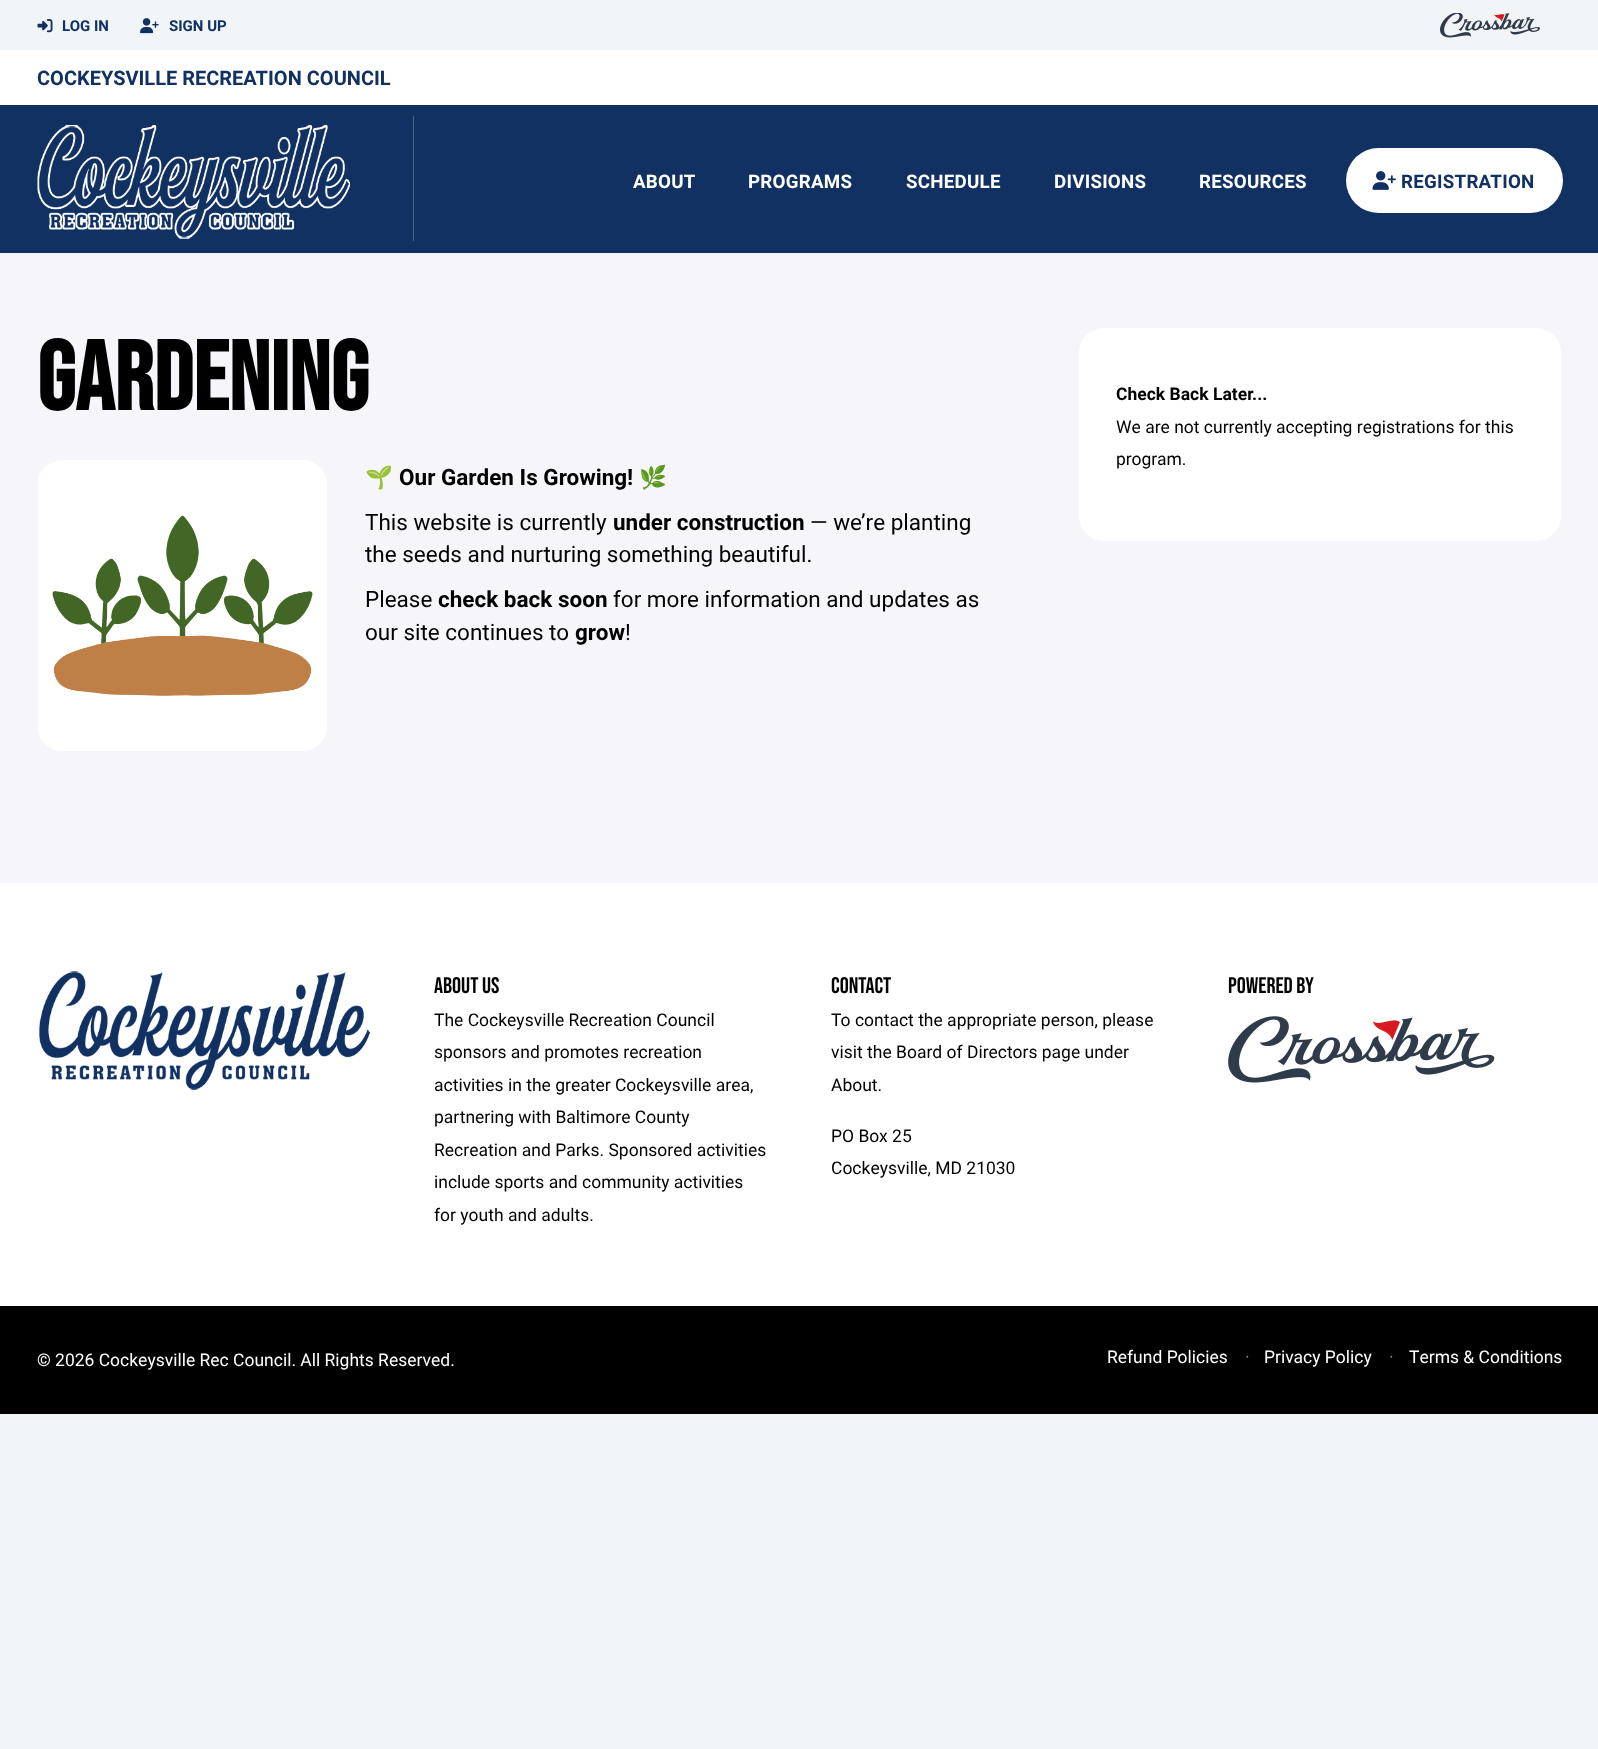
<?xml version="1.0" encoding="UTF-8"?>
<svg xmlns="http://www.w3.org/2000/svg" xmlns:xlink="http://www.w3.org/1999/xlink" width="1598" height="1749">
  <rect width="100%" height="100%" fill="#f2f5f7" />
  <image x="37" y="19" width="16" height="14" xlink:href="image1.png" />
  <image x="140" y="18" width="19" height="16" xlink:href="image2.png" />
  <image x="1440" y="13" width="100" height="25" xlink:href="image3.png" />
  <rect y="50" width="1598" height="55" fill="#ffffff" />
  <rect y="105" width="1598" height="148" fill="#113162" />
  <rect x="413" y="116" width="1" height="125" fill="#4d6589" />
  <image x="37" y="125" width="313" height="114" xlink:href="image4.png" />
  <rect x="1346" y="148" width="217" height="65" rx="32.5" fill="#ffffff" />
  <image x="1372" y="171" width="24" height="19" xlink:href="image5.png" />
  <rect y="253" width="1598" height="630" fill="#f6f5fa" />
  <image x="38" y="460" width="289" height="291" xlink:href="image6.png" />
  <rect x="1079" y="328" width="482" height="213" rx="25" fill="#ffffff" />
  <rect y="883" width="1598" height="423" fill="#ffffff" />
  <image x="39" y="971" width="331" height="119" xlink:href="image7.png" />
  <image x="1228" y="1016" width="267" height="67" xlink:href="image8.png" />
  <rect y="1306" width="1598" height="108" fill="#000000" />
  <text x="62" y="31" style="font-family: Roboto; font-size: 15px; font-weight: bold; fill: #113162">LOG IN</text>
  <text x="169" y="31" style="font-family: Roboto; font-size: 15px; font-weight: bold; fill: #113162">SIGN UP</text>
  <text x="37" y="85" style="font-family: Roboto; font-size: 20px; font-weight: bold; fill: #113162">COCKEYSVILLE RECREATION COUNCIL</text>
  <text x="633" y="188" style="font-family: Roboto; font-size: 18.75px; font-weight: bold; letter-spacing: 0.25px; fill: #ffffff">ABOUT</text>
  <text x="748" y="188" style="font-family: Roboto; font-size: 18.75px; font-weight: bold; letter-spacing: 0.25px; fill: #ffffff">PROGRAMS</text>
  <text x="906" y="188" style="font-family: Roboto; font-size: 18.75px; font-weight: bold; letter-spacing: 0.25px; fill: #ffffff">SCHEDULE</text>
  <text x="1054" y="188" style="font-family: Roboto; font-size: 18.75px; font-weight: bold; letter-spacing: 0.25px; fill: #ffffff">DIVISIONS</text>
  <text x="1199" y="188" style="font-family: Roboto; font-size: 18.75px; font-weight: bold; letter-spacing: 0.25px; fill: #ffffff">RESOURCES</text>
  <text x="1401" y="188" style="font-family: Roboto; font-size: 18.75px; font-weight: bold; letter-spacing: 0.25px; fill: #113162">REGISTRATION</text>
  <text x="37" y="410" style="font-family: Bebas Neue; font-size: 97.5px; font-weight: bold; fill: #000000">GARDENING</text>
  <text x="365" y="485" style="font-family: Noto Color Emoji; font-size: 22.5px; fill: #000000">🌱</text>
  <text x="399" y="485" style="font-family: Roboto; font-size: 22.5px; font-weight: bold; fill: #000000">Our Garden Is Growing!</text>
  <text x="639" y="485" style="font-family: Noto Color Emoji; font-size: 22.5px; fill: #000000">🌿</text>
  <text x="365" y="530" style="font-family: Roboto; font-size: 22.5px; fill: #000000">This website is currently</text>
  <text x="613" y="530" style="font-family: Roboto; font-size: 22.5px; font-weight: bold; fill: #000000">under construction</text>
  <text x="810" y="530" style="font-family: Roboto; font-size: 22.5px; fill: #000000">— we’re planting</text>
  <text x="365" y="562" style="font-family: Roboto; font-size: 22.5px; fill: #000000">the seeds and nurturing something beautiful.</text>
  <text x="365" y="607" style="font-family: Roboto; font-size: 22.5px; fill: #000000">Please</text>
  <text x="438" y="607" style="font-family: Roboto; font-size: 22.5px; font-weight: bold; fill: #000000">check back soon</text>
  <text x="613" y="607" style="font-family: Roboto; font-size: 22.5px; fill: #000000">for more information and updates as</text>
  <text x="365" y="640" style="font-family: Roboto; font-size: 22.5px; fill: #000000">our site continues to</text>
  <text x="575" y="640" style="font-family: Roboto; font-size: 22.5px; font-weight: bold; fill: #000000">grow</text>
  <text x="625" y="640" style="font-family: Roboto; font-size: 22.5px; fill: #000000">!</text>
  <text x="1116" y="400" style="font-family: Roboto; font-size: 17.5px; font-weight: bold; fill: #000000">Check Back Later...</text>
  <text x="1116" y="433" style="font-family: Roboto; font-size: 17.5px; fill: #000000">We are not currently accepting registrations for this</text>
  <text x="1116" y="465" style="font-family: Roboto; font-size: 17.5px; fill: #000000">program.</text>
  <text x="434" y="993" style="font-family: Bebas Neue; font-size: 22.5px; fill: #000000">ABOUT US</text>
  <text x="434" y="1026" style="font-family: Roboto; font-size: 17.5px; fill: #000000">The Cockeysville Recreation Council</text>
  <text x="434" y="1058" style="font-family: Roboto; font-size: 17.5px; fill: #000000">sponsors and promotes recreation</text>
  <text x="434" y="1091" style="font-family: Roboto; font-size: 17.5px; fill: #000000">activities in the greater Cockeysville area,</text>
  <text x="434" y="1123" style="font-family: Roboto; font-size: 17.5px; fill: #000000">partnering with Baltimore County</text>
  <text x="434" y="1156" style="font-family: Roboto; font-size: 17.5px; fill: #000000">Recreation and Parks. Sponsored activities</text>
  <text x="434" y="1188" style="font-family: Roboto; font-size: 17.5px; fill: #000000">include sports and community activities</text>
  <text x="434" y="1221" style="font-family: Roboto; font-size: 17.5px; fill: #000000">for youth and adults.</text>
  <text x="831" y="993" style="font-family: Bebas Neue; font-size: 22.5px; fill: #000000">CONTACT</text>
  <text x="831" y="1026" style="font-family: Roboto; font-size: 17.5px; fill: #000000">To contact the appropriate person, please</text>
  <text x="831" y="1058" style="font-family: Roboto; font-size: 17.5px; fill: #000000">visit the Board of Directors page under</text>
  <text x="831" y="1091" style="font-family: Roboto; font-size: 17.5px; fill: #000000">About.</text>
  <text x="831" y="1142" style="font-family: Roboto; font-size: 17.5px; fill: #000000">PO Box 25</text>
  <text x="831" y="1174" style="font-family: Roboto; font-size: 17.5px; fill: #000000">Cockeysville, MD 21030</text>
  <text x="1228" y="993" style="font-family: Bebas Neue; font-size: 22.5px; fill: #000000">POWERED BY</text>
  <text x="37" y="1366" style="font-family: Roboto; font-size: 17.5px; fill: #ffffff">© 2026 Cockeysville Rec Council. All Rights Reserved.</text>
  <text x="1107" y="1363" style="font-family: Roboto; font-size: 17.5px; fill: #ffffff">Refund Policies</text>
  <text x="1245" y="1363" style="font-family: Roboto; font-size: 17.5px; fill: #707e8c">·</text>
  <text x="1264" y="1363" style="font-family: Roboto; font-size: 17.5px; fill: #ffffff">Privacy Policy</text>
  <text x="1389" y="1363" style="font-family: Roboto; font-size: 17.5px; fill: #707e8c">·</text>
  <text x="1409" y="1363" style="font-family: Roboto; font-size: 17.5px; fill: #ffffff">Terms &amp; Conditions</text>
</svg>
